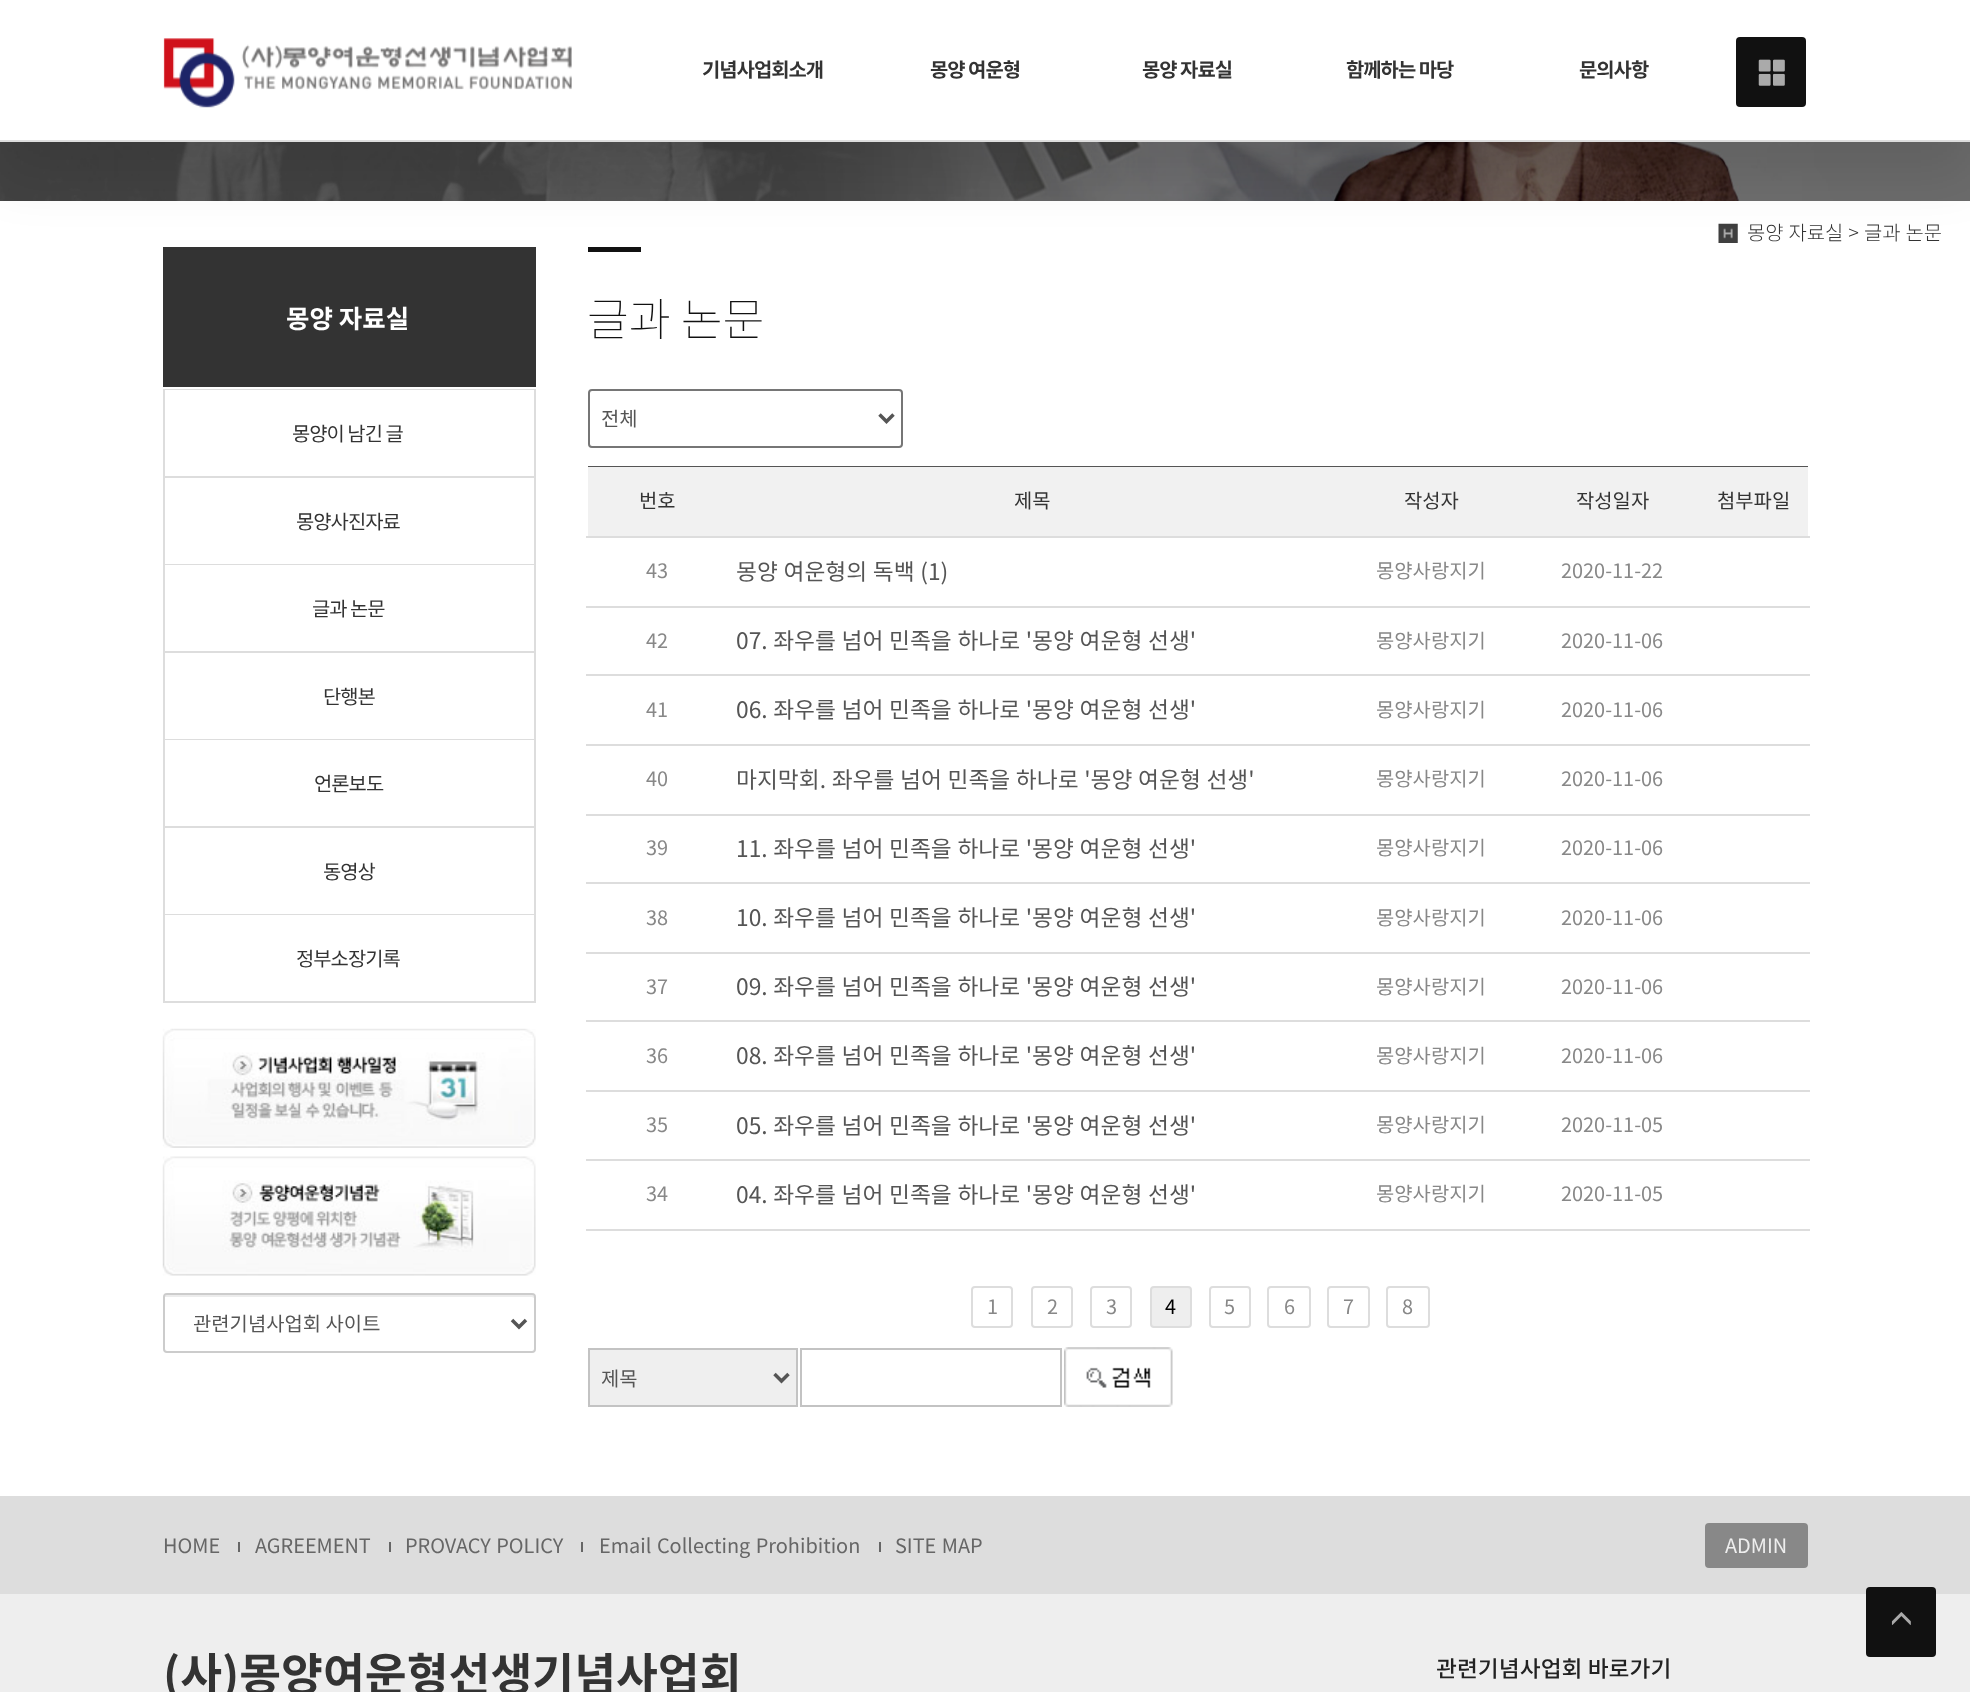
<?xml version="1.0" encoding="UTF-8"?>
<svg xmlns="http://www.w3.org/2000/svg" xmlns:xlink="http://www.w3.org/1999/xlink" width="1970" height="1692">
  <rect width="100%" height="100%" fill="#ffffff" />
  <image x="0" y="142" width="1970" height="59" xlink:href="image3.png" />
  <image x="1718" y="223" width="20" height="20" xlink:href="image4.png" />
  <rect x="163" y="247" width="373" height="140" fill="#333333" />
  <rect x="588" y="247" width="53" height="5" fill="#111111" />
  <rect y="-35" width="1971" height="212" fill="#000000" fill-opacity="0.1" filter="blur(26px)" />
  <rect width="1970" height="140" fill="#ffffff" />
  <rect y="140" width="1970" height="2" fill="#dddddd" />
  <image x="163" y="38" width="409" height="70" xlink:href="image1.png" />
  <rect x="1736" y="37" width="70" height="70" rx="4" fill="#111111" />
  <image x="1758" y="59" width="27" height="27" xlink:href="image2.png" />
  <rect x="163" y="389" width="373" height="1" fill="#dddddd" />
  <rect x="534" y="390" width="2" height="613" fill="#dddddd" />
  <rect x="163" y="476" width="373" height="2" fill="#dddddd" />
  <rect x="163" y="390" width="2" height="88" fill="#dddddd" />
  <rect x="163" y="564" width="373" height="1" fill="#dddddd" />
  <rect x="163" y="478" width="2" height="87" fill="#dddddd" />
  <rect x="163" y="651" width="373" height="2" fill="#dddddd" />
  <rect x="163" y="565" width="2" height="88" fill="#dddddd" />
  <rect x="163" y="739" width="373" height="1" fill="#dddddd" />
  <rect x="163" y="653" width="2" height="87" fill="#dddddd" />
  <rect x="163" y="826" width="373" height="2" fill="#dddddd" />
  <rect x="163" y="740" width="2" height="88" fill="#dddddd" />
  <rect x="163" y="914" width="373" height="1" fill="#dddddd" />
  <rect x="163" y="828" width="2" height="87" fill="#dddddd" />
  <rect x="163" y="1001" width="373" height="2" fill="#dddddd" />
  <rect x="163" y="915" width="2" height="88" fill="#dddddd" />
  <image x="162" y="1028" width="374" height="120" xlink:href="image5.png" />
  <image x="162" y="1156" width="374" height="120" xlink:href="image6.png" />
  <path d="M 166 1297 h 366 l 2 1 v -1 c 0 -1 -1 -2 -2 -2 h -365 c -1 0 -2 1 -2 2 z" fill="#ececec" />
  <rect x="164" y="1294" width="371" height="58" rx="3" fill="none" stroke="#cccccc" stroke-width="2" />
  <path d="M 512 1320 l 7 7 l 7 -7" fill="none" stroke="#555555" stroke-width="3.5" />
  <rect x="589" y="390" width="313" height="57" rx="3" fill="none" stroke="#767676" stroke-width="2" />
  <path d="M 879.5 414.5 l 7 7 l 7 -7" fill="none" stroke="#555555" stroke-width="3.5" />
  <rect x="588" y="466" width="1220" height="1" fill="#555555" />
  <rect x="588" y="467" width="1220" height="69" fill="#f1f1f1" />
  <rect x="586" y="536" width="1224" height="2" fill="#dddddd" />
  <rect x="586" y="606" width="1224" height="2" fill="#dddddd" />
  <rect x="586" y="674" width="1224" height="2" fill="#dddddd" />
  <rect x="586" y="744" width="1224" height="2" fill="#dddddd" />
  <rect x="586" y="814" width="1224" height="2" fill="#dddddd" />
  <rect x="586" y="882" width="1224" height="2" fill="#dddddd" />
  <rect x="586" y="952" width="1224" height="2" fill="#dddddd" />
  <rect x="586" y="1020" width="1224" height="2" fill="#dddddd" />
  <rect x="586" y="1090" width="1224" height="2" fill="#dddddd" />
  <rect x="586" y="1159" width="1224" height="2" fill="#dddddd" />
  <rect x="586" y="1229" width="1224" height="2" fill="#dddddd" />
  <rect x="972" y="1287" width="40" height="40" rx="3" fill="none" stroke="#dddddd" stroke-width="2" />
  <rect x="1032" y="1287" width="40" height="40" rx="3" fill="none" stroke="#dddddd" stroke-width="2" />
  <rect x="1091" y="1287" width="40" height="40" rx="3" fill="none" stroke="#dddddd" stroke-width="2" />
  <rect x="1151" y="1287" width="40" height="40" rx="3" fill="#eeeeee" stroke="#dddddd" stroke-width="2" />
  <rect x="1210" y="1287" width="40" height="40" rx="3" fill="none" stroke="#dddddd" stroke-width="2" />
  <rect x="1268" y="1287" width="42" height="40" rx="3" fill="none" stroke="#dddddd" stroke-width="2" />
  <rect x="1328" y="1287" width="41" height="40" rx="3" fill="none" stroke="#dddddd" stroke-width="2" />
  <rect x="1387" y="1287" width="42" height="40" rx="3" fill="none" stroke="#dddddd" stroke-width="2" />
  <rect x="589" y="1349" width="208" height="57" fill="#efefef" stroke="#c3c3c3" stroke-width="2" />
  <path d="M 774.5 1374 l 7 7 l 7 -7" fill="none" stroke="#555555" stroke-width="3.5" />
  <rect x="801" y="1349" width="260" height="57" fill="none" stroke="#c3c3c3" stroke-width="2" />
  <image x="1064" y="1347" width="109" height="60" xlink:href="image7.png" />
  <rect y="1594" width="1970" height="98" fill="#eeeeee" />
  <rect y="1496" width="1970" height="98" fill="#dddddd" />
  <rect x="238" y="1542" width="2" height="10" fill="#666666" />
  <rect x="389" y="1542" width="2" height="10" fill="#666666" />
  <rect x="581" y="1542" width="2" height="10" fill="#666666" />
  <rect x="879" y="1542" width="2" height="10" fill="#666666" />
  <rect x="1705" y="1523" width="103" height="45" rx="4" fill="#888888" />
  <rect x="1866" y="1587" width="70" height="70" rx="4" fill="#111111" />
  <image x="1891" y="1612" width="20" height="13" xlink:href="image8.png" />
  <text x="702" y="77" style="font-family: Noto Sans KR; font-size: 19.9px; font-weight: bold; letter-spacing: -1px; fill: #333333">기념사업회소개</text>
  <text x="930" y="77" style="font-family: Noto Sans KR; font-size: 19.9px; font-weight: bold; letter-spacing: -1px; fill: #333333">몽양 여운형</text>
  <text x="1142" y="77" style="font-family: Noto Sans KR; font-size: 19.9px; font-weight: bold; letter-spacing: -1px; fill: #333333">몽양 자료실</text>
  <text x="1346" y="77" style="font-family: Noto Sans KR; font-size: 19.9px; font-weight: bold; letter-spacing: -1px; fill: #333333">함께하는 마당</text>
  <text x="1579" y="77" style="font-family: Noto Sans KR; font-size: 19.9px; font-weight: bold; letter-spacing: -1px; fill: #333333">문의사항</text>
  <text x="1747" y="240" word-spacing="0.5" style="font-family: Noto Sans KR; font-size: 19.9px; font-weight: 300; fill: #333333">몽양 자료실 &gt; 글과 논문</text>
  <text x="286" y="328" style="font-family: Noto Sans KR; font-size: 25.5px; font-weight: bold; fill: #ffffff">몽양 자료실</text>
  <text x="292" y="441" style="font-family: Noto Sans KR; font-size: 19.9px; letter-spacing: -1px; fill: #333333">몽양이 남긴 글</text>
  <text x="296" y="529" style="font-family: Noto Sans KR; font-size: 19.9px; letter-spacing: -1px; fill: #333333">몽양사진자료</text>
  <text x="312" y="616" style="font-family: Noto Sans KR; font-size: 19.9px; letter-spacing: -1px; fill: #333333">글과 논문</text>
  <text x="323" y="704" style="font-family: Noto Sans KR; font-size: 19.9px; letter-spacing: -1px; fill: #333333">단행본</text>
  <text x="314" y="791" style="font-family: Noto Sans KR; font-size: 19.9px; letter-spacing: -1px; fill: #333333">언론보도</text>
  <text x="323" y="879" style="font-family: Noto Sans KR; font-size: 19.9px; letter-spacing: -1px; fill: #333333">동영상</text>
  <text x="296" y="966" style="font-family: Noto Sans KR; font-size: 19.9px; letter-spacing: -1px; fill: #333333">정부소장기록</text>
  <text x="193" y="1331" style="font-family: Noto Sans KR; font-size: 19.9px; fill: #555555">관련기념사업회 사이트</text>
  <text x="587" y="336" style="font-family: Noto Sans KR; font-size: 45.5px; font-weight: 100; fill: #111111">글과 논문</text>
  <text x="601" y="426" style="font-family: Noto Sans KR; font-size: 19.9px; fill: #555555">전체</text>
  <text x="639" y="508" style="font-family: Noto Sans KR; font-size: 19.9px; fill: #333333">번호</text>
  <text x="1014" y="508" style="font-family: Noto Sans KR; font-size: 19.9px; fill: #333333">제목</text>
  <text x="1404" y="508" style="font-family: Noto Sans KR; font-size: 19.9px; fill: #333333">작성자</text>
  <text x="1576" y="508" style="font-family: Noto Sans KR; font-size: 19.9px; fill: #333333">작성일자</text>
  <text x="1717" y="508" style="font-family: Noto Sans KR; font-size: 19.9px; fill: #333333">첨부파일</text>
  <text x="646" y="578" style="font-family: Noto Sans KR; font-size: 19.9px; fill: #888888">43</text>
  <text x="736" y="580" word-spacing="0.5" style="font-family: Noto Sans KR; font-size: 22.75px; fill: #555555">몽양 여운형의 독백 (1)</text>
  <text x="1376" y="578" style="font-family: Noto Sans KR; font-size: 19.9px; fill: #888888">몽양사랑지기</text>
  <text x="1561" y="578" style="font-family: Noto Sans KR; font-size: 19.9px; fill: #888888">2020-11-22</text>
  <text x="646" y="648" style="font-family: Noto Sans KR; font-size: 19.9px; fill: #888888">42</text>
  <text x="736" y="649" word-spacing="0.5" style="font-family: Noto Sans KR; font-size: 22.75px; fill: #555555">07. 좌우를 넘어 민족을 하나로 '몽양 여운형 선생'</text>
  <text x="1376" y="648" style="font-family: Noto Sans KR; font-size: 19.9px; fill: #888888">몽양사랑지기</text>
  <text x="1561" y="648" style="font-family: Noto Sans KR; font-size: 19.9px; fill: #888888">2020-11-06</text>
  <text x="646" y="717" style="font-family: Noto Sans KR; font-size: 19.9px; fill: #888888">41</text>
  <text x="736" y="718" word-spacing="0.5" style="font-family: Noto Sans KR; font-size: 22.75px; fill: #555555">06. 좌우를 넘어 민족을 하나로 '몽양 여운형 선생'</text>
  <text x="1376" y="717" style="font-family: Noto Sans KR; font-size: 19.9px; fill: #888888">몽양사랑지기</text>
  <text x="1561" y="717" style="font-family: Noto Sans KR; font-size: 19.9px; fill: #888888">2020-11-06</text>
  <text x="646" y="786" style="font-family: Noto Sans KR; font-size: 19.9px; fill: #888888">40</text>
  <text x="736" y="788" word-spacing="0.5" style="font-family: Noto Sans KR; font-size: 22.75px; fill: #555555">마지막회. 좌우를 넘어 민족을 하나로 '몽양 여운형 선생'</text>
  <text x="1376" y="786" style="font-family: Noto Sans KR; font-size: 19.9px; fill: #888888">몽양사랑지기</text>
  <text x="1561" y="786" style="font-family: Noto Sans KR; font-size: 19.9px; fill: #888888">2020-11-06</text>
  <text x="646" y="855" style="font-family: Noto Sans KR; font-size: 19.9px; fill: #888888">39</text>
  <text x="736" y="857" word-spacing="0.5" style="font-family: Noto Sans KR; font-size: 22.75px; fill: #555555">11. 좌우를 넘어 민족을 하나로 '몽양 여운형 선생'</text>
  <text x="1376" y="855" style="font-family: Noto Sans KR; font-size: 19.9px; fill: #888888">몽양사랑지기</text>
  <text x="1561" y="855" style="font-family: Noto Sans KR; font-size: 19.9px; fill: #888888">2020-11-06</text>
  <text x="646" y="925" style="font-family: Noto Sans KR; font-size: 19.9px; fill: #888888">38</text>
  <text x="736" y="926" word-spacing="0.5" style="font-family: Noto Sans KR; font-size: 22.75px; fill: #555555">10. 좌우를 넘어 민족을 하나로 '몽양 여운형 선생'</text>
  <text x="1376" y="925" style="font-family: Noto Sans KR; font-size: 19.9px; fill: #888888">몽양사랑지기</text>
  <text x="1561" y="925" style="font-family: Noto Sans KR; font-size: 19.9px; fill: #888888">2020-11-06</text>
  <text x="646" y="994" style="font-family: Noto Sans KR; font-size: 19.9px; fill: #888888">37</text>
  <text x="736" y="995" word-spacing="0.5" style="font-family: Noto Sans KR; font-size: 22.75px; fill: #555555">09. 좌우를 넘어 민족을 하나로 '몽양 여운형 선생'</text>
  <text x="1376" y="994" style="font-family: Noto Sans KR; font-size: 19.9px; fill: #888888">몽양사랑지기</text>
  <text x="1561" y="994" style="font-family: Noto Sans KR; font-size: 19.9px; fill: #888888">2020-11-06</text>
  <text x="646" y="1063" style="font-family: Noto Sans KR; font-size: 19.9px; fill: #888888">36</text>
  <text x="736" y="1064" word-spacing="0.5" style="font-family: Noto Sans KR; font-size: 22.75px; fill: #555555">08. 좌우를 넘어 민족을 하나로 '몽양 여운형 선생'</text>
  <text x="1376" y="1063" style="font-family: Noto Sans KR; font-size: 19.9px; fill: #888888">몽양사랑지기</text>
  <text x="1561" y="1063" style="font-family: Noto Sans KR; font-size: 19.9px; fill: #888888">2020-11-06</text>
  <text x="646" y="1132" style="font-family: Noto Sans KR; font-size: 19.9px; fill: #888888">35</text>
  <text x="736" y="1134" word-spacing="0.5" style="font-family: Noto Sans KR; font-size: 22.75px; fill: #555555">05. 좌우를 넘어 민족을 하나로 '몽양 여운형 선생'</text>
  <text x="1376" y="1132" style="font-family: Noto Sans KR; font-size: 19.9px; fill: #888888">몽양사랑지기</text>
  <text x="1561" y="1132" style="font-family: Noto Sans KR; font-size: 19.9px; fill: #888888">2020-11-05</text>
  <text x="646" y="1201" style="font-family: Noto Sans KR; font-size: 19.9px; fill: #888888">34</text>
  <text x="736" y="1203" word-spacing="0.5" style="font-family: Noto Sans KR; font-size: 22.75px; fill: #555555">04. 좌우를 넘어 민족을 하나로 '몽양 여운형 선생'</text>
  <text x="1376" y="1201" style="font-family: Noto Sans KR; font-size: 19.9px; fill: #888888">몽양사랑지기</text>
  <text x="1561" y="1201" style="font-family: Noto Sans KR; font-size: 19.9px; fill: #888888">2020-11-05</text>
  <text x="987" y="1314" style="font-family: Noto Sans KR; font-size: 19.9px; fill: #888888">1</text>
  <text x="1047" y="1314" style="font-family: Noto Sans KR; font-size: 19.9px; fill: #888888">2</text>
  <text x="1106" y="1314" style="font-family: Noto Sans KR; font-size: 19.9px; fill: #888888">3</text>
  <text x="1165" y="1314" style="font-family: Noto Sans KR; font-size: 19.9px; fill: #000000">4</text>
  <text x="1224" y="1314" style="font-family: Noto Sans KR; font-size: 19.9px; fill: #888888">5</text>
  <text x="1284" y="1314" style="font-family: Noto Sans KR; font-size: 19.9px; fill: #888888">6</text>
  <text x="1343" y="1314" style="font-family: Noto Sans KR; font-size: 19.9px; fill: #888888">7</text>
  <text x="1402" y="1314" style="font-family: Noto Sans KR; font-size: 19.9px; fill: #888888">8</text>
  <text x="601" y="1386" style="font-family: Noto Sans KR; font-size: 19.9px; fill: #555555">제목</text>
  <text x="163" y="1553" style="font-family: Noto Sans KR; font-size: 19.9px; fill: #666666">HOME</text>
  <text x="255" y="1553" style="font-family: Noto Sans KR; font-size: 19.9px; fill: #666666">AGREEMENT</text>
  <text x="405" y="1553" word-spacing="1" style="font-family: Noto Sans KR; font-size: 19.9px; fill: #666666">PROVACY POLICY</text>
  <text x="599" y="1553" word-spacing="1" style="font-family: Noto Sans KR; font-size: 19.9px; fill: #666666">Email Collecting Prohibition</text>
  <text x="895" y="1553" word-spacing="1" style="font-family: Noto Sans KR; font-size: 19.9px; fill: #666666">SITE MAP</text>
  <text x="1725" y="1553" style="font-family: Noto Sans KR; font-size: 19.9px; fill: #eeeeee">ADMIN</text>
  <text x="163" y="1691" style="font-family: Noto Sans KR; font-size: 45.5px; font-weight: bold; fill: #333333">(사)몽양여운형선생기념사업회</text>
  <text x="1436" y="1677" style="font-family: Noto Sans KR; font-size: 22.75px; font-weight: 500; fill: #222222">관련기념사업회 바로가기</text>
</svg>
